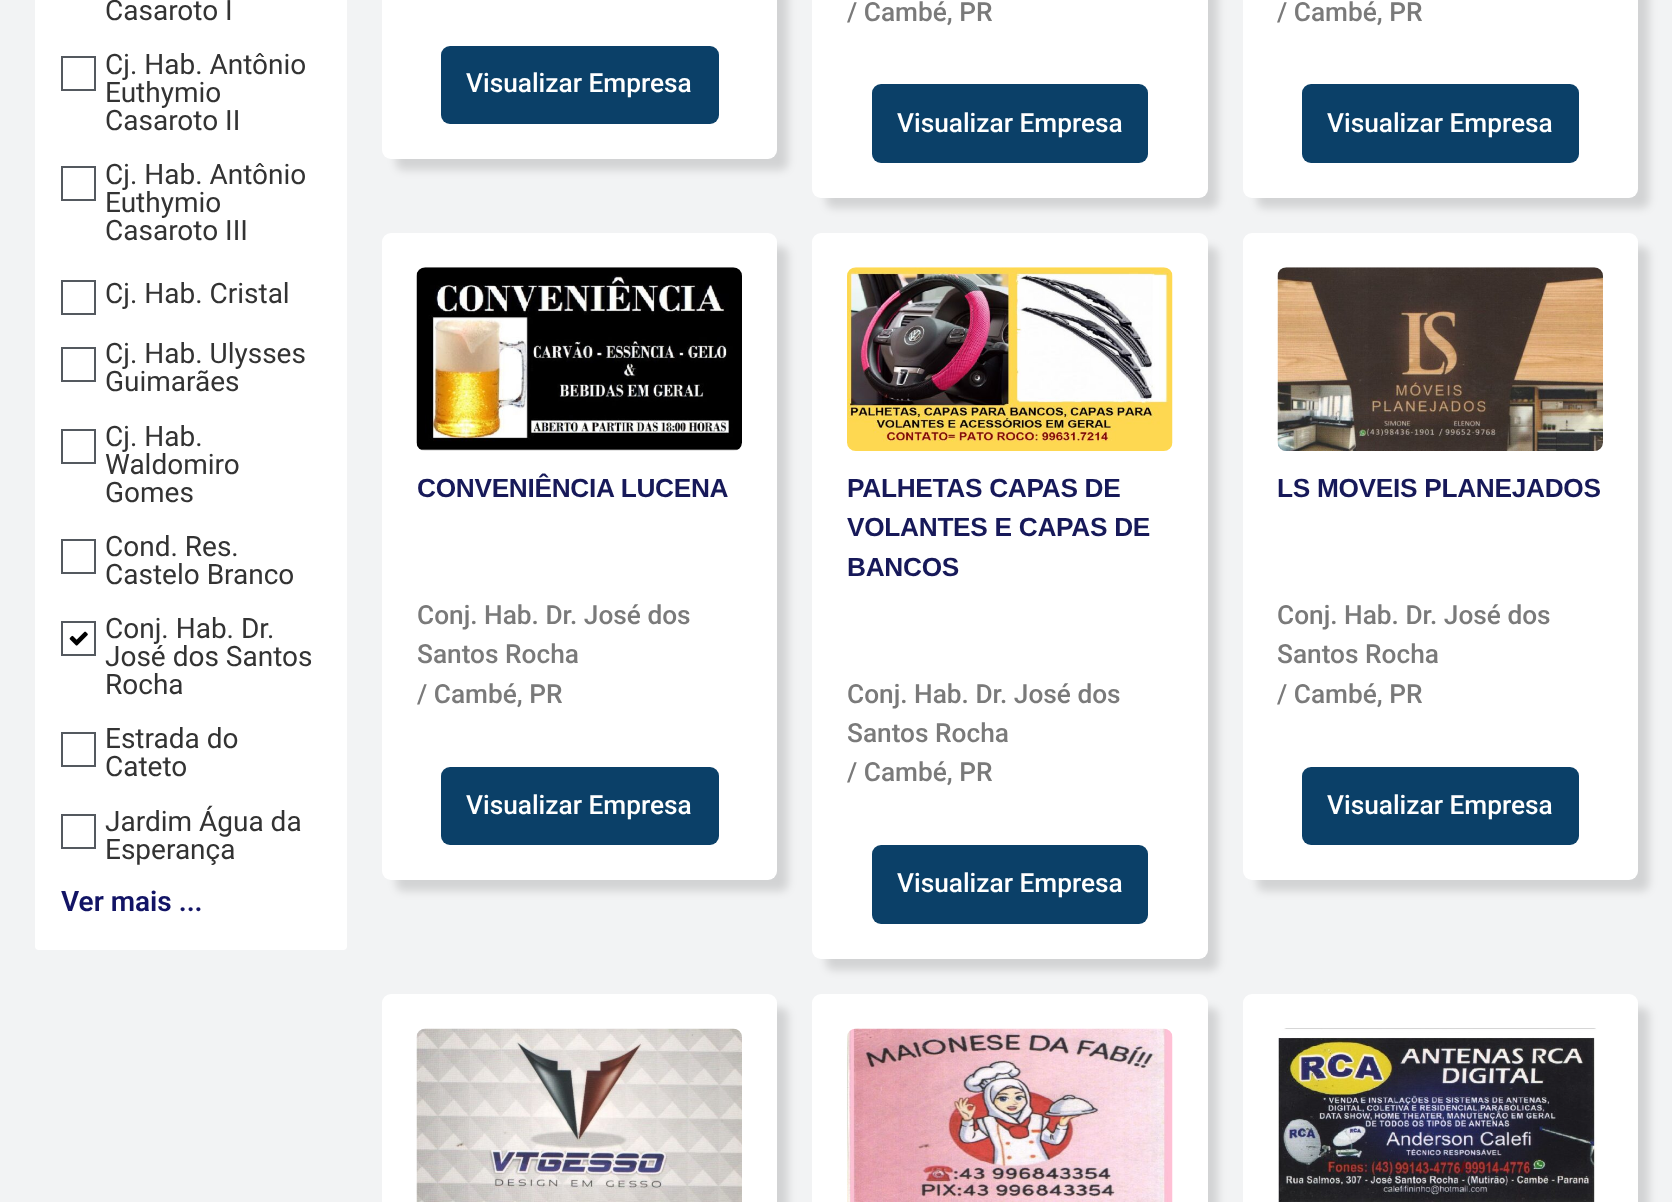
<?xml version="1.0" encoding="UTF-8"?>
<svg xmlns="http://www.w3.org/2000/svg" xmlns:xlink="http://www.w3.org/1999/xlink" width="1672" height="1202">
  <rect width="100%" height="100%" fill="#f2f3f4" />
  <rect x="35" y="-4" width="312" height="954" rx="4" fill="#ffffff" />
  <rect x="62" y="57" width="33" height="33" fill="none" stroke="#54595f" stroke-width="2" />
  <rect x="62" y="167" width="33" height="33" fill="none" stroke="#54595f" stroke-width="2" />
  <rect x="62" y="281" width="33" height="33" fill="none" stroke="#54595f" stroke-width="2" />
  <rect x="62" y="348" width="33" height="33" fill="none" stroke="#54595f" stroke-width="2" />
  <rect x="62" y="430" width="33" height="33" fill="none" stroke="#54595f" stroke-width="2" />
  <rect x="62" y="540" width="33" height="33" fill="none" stroke="#54595f" stroke-width="2" />
  <rect x="62" y="622" width="33" height="33" fill="none" stroke="#54595f" stroke-width="2" />
  <image x="69" y="631" width="19" height="15" xlink:href="image1.png" />
  <rect x="62" y="733" width="33" height="33" fill="none" stroke="#54595f" stroke-width="2" />
  <rect x="62" y="815" width="33" height="33" fill="none" stroke="#54595f" stroke-width="2" />
  <rect x="396" y="-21" width="392" height="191" rx="7" fill="#000000" fill-opacity="0.13" filter="blur(4.5px)" />
  <rect x="382" y="-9" width="395" height="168" rx="9" fill="#ffffff" />
  <rect x="441" y="46" width="278" height="78" rx="9" fill="#0b4068" />
  <rect x="826" y="-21" width="392" height="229" rx="7" fill="#000000" fill-opacity="0.13" filter="blur(4.5px)" />
  <rect x="812" y="-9" width="396" height="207" rx="9" fill="#ffffff" />
  <rect x="872" y="84" width="276" height="79" rx="9" fill="#0b4068" />
  <rect x="1257" y="-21" width="392" height="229" rx="7" fill="#000000" fill-opacity="0.13" filter="blur(4.5px)" />
  <rect x="1243" y="-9" width="395" height="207" rx="9" fill="#ffffff" />
  <rect x="1302" y="84" width="277" height="79" rx="9" fill="#0b4068" />
  <rect x="396" y="247" width="392" height="644" rx="7" fill="#000000" fill-opacity="0.13" filter="blur(4.5px)" />
  <rect x="382" y="233" width="395" height="647" rx="9" fill="#ffffff" />
  <image x="416" y="267" width="326" height="184" xlink:href="image2.png" />
  <rect x="441" y="767" width="278" height="78" rx="9" fill="#0b4068" />
  <rect x="826" y="247" width="392" height="723" rx="7" fill="#000000" fill-opacity="0.13" filter="blur(4.5px)" />
  <rect x="812" y="233" width="396" height="726" rx="9" fill="#ffffff" />
  <image x="847" y="267" width="326" height="184" xlink:href="image3.png" />
  <rect x="872" y="845" width="276" height="79" rx="9" fill="#0b4068" />
  <rect x="1257" y="247" width="392" height="644" rx="7" fill="#000000" fill-opacity="0.13" filter="blur(4.5px)" />
  <rect x="1243" y="233" width="395" height="647" rx="9" fill="#ffffff" />
  <image x="1277" y="267" width="326" height="184" xlink:href="image4.png" />
  <rect x="1302" y="767" width="277" height="78" rx="9" fill="#0b4068" />
  <rect x="396" y="1008" width="392" height="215" rx="7" fill="#000000" fill-opacity="0.13" filter="blur(4.5px)" />
  <rect x="382" y="994" width="395" height="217" rx="9" fill="#ffffff" />
  <image x="416" y="1028" width="326" height="174" xlink:href="image5.png" />
  <rect x="826" y="1008" width="392" height="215" rx="7" fill="#000000" fill-opacity="0.13" filter="blur(4.5px)" />
  <rect x="812" y="994" width="396" height="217" rx="9" fill="#ffffff" />
  <image x="847" y="1028" width="326" height="174" xlink:href="image6.png" />
  <rect x="1257" y="1008" width="392" height="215" rx="7" fill="#000000" fill-opacity="0.13" filter="blur(4.5px)" />
  <rect x="1243" y="994" width="395" height="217" rx="9" fill="#ffffff" />
  <image x="1278" y="1028" width="319" height="174" xlink:href="image7.png" />
  <text x="105" y="20" style="font-family: Roboto; font-size: 28px; fill: #333333">Casaroto I</text>
  <text x="105" y="74" style="font-family: Roboto; font-size: 28px; fill: #333333">Cj. Hab. Antônio</text>
  <text x="105" y="102" style="font-family: Roboto; font-size: 28px; fill: #333333">Euthymio</text>
  <text x="105" y="130" style="font-family: Roboto; font-size: 28px; fill: #333333">Casaroto II</text>
  <text x="105" y="184" style="font-family: Roboto; font-size: 28px; fill: #333333">Cj. Hab. Antônio</text>
  <text x="105" y="212" style="font-family: Roboto; font-size: 28px; fill: #333333">Euthymio</text>
  <text x="105" y="240" style="font-family: Roboto; font-size: 28px; fill: #333333">Casaroto III</text>
  <text x="105" y="303" style="font-family: Roboto; font-size: 28px; fill: #333333">Cj. Hab. Cristal</text>
  <text x="105" y="363" style="font-family: Roboto; font-size: 28px; fill: #333333">Cj. Hab. Ulysses</text>
  <text x="105" y="391" style="font-family: Roboto; font-size: 28px; fill: #333333">Guimarães</text>
  <text x="105" y="446" style="font-family: Roboto; font-size: 28px; fill: #333333">Cj. Hab.</text>
  <text x="105" y="474" style="font-family: Roboto; font-size: 28px; fill: #333333">Waldomiro</text>
  <text x="105" y="502" style="font-family: Roboto; font-size: 28px; fill: #333333">Gomes</text>
  <text x="105" y="556" style="font-family: Roboto; font-size: 28px; fill: #333333">Cond. Res.</text>
  <text x="105" y="584" style="font-family: Roboto; font-size: 28px; fill: #333333">Castelo Branco</text>
  <text x="105" y="638" style="font-family: Roboto; font-size: 28px; fill: #333333">Conj. Hab. Dr.</text>
  <text x="105" y="666" style="font-family: Roboto; font-size: 28px; fill: #333333">José dos Santos</text>
  <text x="105" y="694" style="font-family: Roboto; font-size: 28px; fill: #333333">Rocha</text>
  <text x="105" y="748" style="font-family: Roboto; font-size: 28px; fill: #333333">Estrada do</text>
  <text x="105" y="776" style="font-family: Roboto; font-size: 28px; fill: #333333">Cateto</text>
  <text x="105" y="831" style="font-family: Roboto; font-size: 28px; fill: #333333">Jardim Água da</text>
  <text x="105" y="859" style="font-family: Roboto; font-size: 28px; fill: #333333">Esperança</text>
  <text x="61" y="911" style="font-family: Roboto; font-size: 28px; font-weight: 600; fill: #121465">Ver mais ...</text>
  <text x="466" y="92" style="font-family: Roboto; font-size: 26.25px; font-weight: 500; fill: #ffffff">Visualizar Empresa</text>
  <text x="847" y="21" style="font-family: Roboto; font-size: 26.25px; font-weight: 500; fill: #7a7a7a">/ Cambé, PR</text>
  <text x="897" y="132" style="font-family: Roboto; font-size: 26.25px; font-weight: 500; fill: #ffffff">Visualizar Empresa</text>
  <text x="1277" y="21" style="font-family: Roboto; font-size: 26.25px; font-weight: 500; fill: #7a7a7a">/ Cambé, PR</text>
  <text x="1327" y="132" style="font-family: Roboto; font-size: 26.25px; font-weight: 500; fill: #ffffff">Visualizar Empresa</text>
  <text x="417" y="497" style="font-family: Liberation Sans; font-size: 26.25px; font-weight: bold; letter-spacing: -0.3px; fill: #171959">CONVENIÊNCIA LUCENA</text>
  <text x="417" y="624" style="font-family: Roboto; font-size: 26.25px; font-weight: 500; fill: #7a7a7a">Conj. Hab. Dr. José dos</text>
  <text x="417" y="663" style="font-family: Roboto; font-size: 26.25px; font-weight: 500; fill: #7a7a7a">Santos Rocha</text>
  <text x="417" y="703" style="font-family: Roboto; font-size: 26.25px; font-weight: 500; fill: #7a7a7a">/ Cambé, PR</text>
  <text x="466" y="814" style="font-family: Roboto; font-size: 26.25px; font-weight: 500; fill: #ffffff">Visualizar Empresa</text>
  <text x="847" y="497" style="font-family: Liberation Sans; font-size: 26.25px; font-weight: bold; letter-spacing: -0.3px; fill: #171959">PALHETAS CAPAS DE</text>
  <text x="847" y="536" style="font-family: Liberation Sans; font-size: 26.25px; font-weight: bold; letter-spacing: -0.3px; fill: #171959">VOLANTES E CAPAS DE</text>
  <text x="847" y="576" style="font-family: Liberation Sans; font-size: 26.25px; font-weight: bold; letter-spacing: -0.3px; fill: #171959">BANCOS</text>
  <text x="847" y="703" style="font-family: Roboto; font-size: 26.25px; font-weight: 500; fill: #7a7a7a">Conj. Hab. Dr. José dos</text>
  <text x="847" y="742" style="font-family: Roboto; font-size: 26.25px; font-weight: 500; fill: #7a7a7a">Santos Rocha</text>
  <text x="847" y="781" style="font-family: Roboto; font-size: 26.25px; font-weight: 500; fill: #7a7a7a">/ Cambé, PR</text>
  <text x="897" y="892" style="font-family: Roboto; font-size: 26.25px; font-weight: 500; fill: #ffffff">Visualizar Empresa</text>
  <text x="1277" y="497" style="font-family: Liberation Sans; font-size: 26.25px; font-weight: bold; letter-spacing: -0.3px; fill: #171959">LS MOVEIS PLANEJADOS</text>
  <text x="1277" y="624" style="font-family: Roboto; font-size: 26.25px; font-weight: 500; fill: #7a7a7a">Conj. Hab. Dr. José dos</text>
  <text x="1277" y="663" style="font-family: Roboto; font-size: 26.25px; font-weight: 500; fill: #7a7a7a">Santos Rocha</text>
  <text x="1277" y="703" style="font-family: Roboto; font-size: 26.25px; font-weight: 500; fill: #7a7a7a">/ Cambé, PR</text>
  <text x="1327" y="814" style="font-family: Roboto; font-size: 26.25px; font-weight: 500; fill: #ffffff">Visualizar Empresa</text>
</svg>
